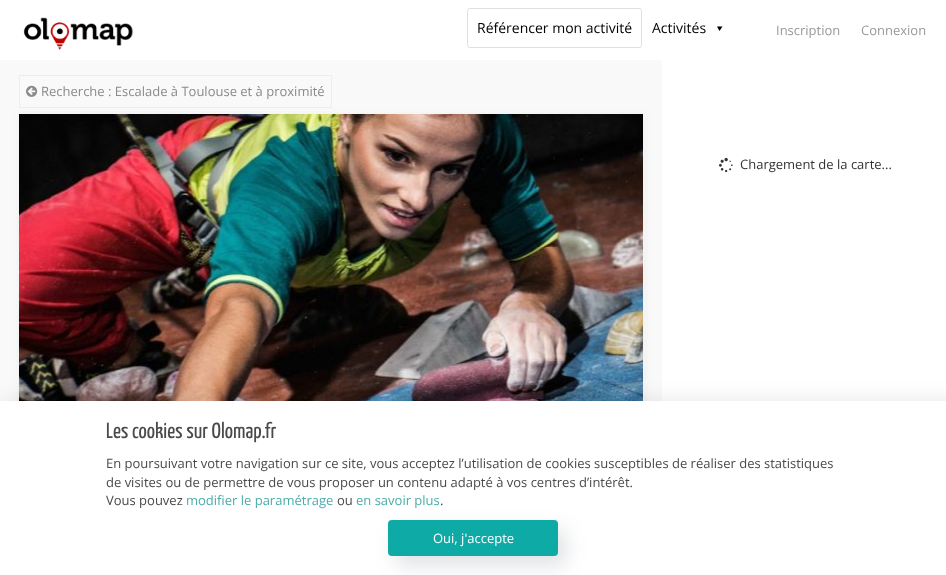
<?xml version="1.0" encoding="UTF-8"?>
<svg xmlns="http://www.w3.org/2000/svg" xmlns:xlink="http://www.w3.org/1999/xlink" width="946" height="575">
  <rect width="100%" height="100%" fill="#ffffff" />
  <image x="23" y="17" width="110" height="33" xlink:href="image1.png" />
  <rect x="467.5" y="8.5" width="174" height="39" rx="2.5" fill="none" stroke="#e0e0e0" />
  <path d="M 722.5 26.5 l -3 4.5 l -2.5 -4.5 z" fill="#000000" />
  <rect y="60" width="662" height="341" fill="#f9f9f9" />
  <rect x="19" y="115" width="626" height="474" fill="#000000" fill-opacity="0.04" filter="blur(4.5px)" />
  <rect x="19.5" y="75.5" width="312" height="32" fill="none" stroke="#ededed" />
  <image x="26" y="85" width="12" height="12" xlink:href="image2.png" />
  <image x="19" y="114" width="624" height="287" xlink:href="image3.png" />
  <image x="719" y="157" width="14" height="16" xlink:href="image4.png" />
  <rect x="4" y="398" width="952" height="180" fill="#000000" fill-opacity="0.08" filter="blur(9px)" />
  <rect y="401" width="946" height="174" fill="#ffffff" />
  <rect x="396" y="530" width="170" height="36" rx="4" fill="#2e3d49" fill-opacity="0.15" filter="blur(10px)" />
  <rect x="388" y="520" width="170" height="36" rx="4" fill="#0eaaa6" />
  <text x="477" y="33" style="font-family: Open Sans; font-size: 14px; fill: #000000">Référencer mon activité</text>
  <text x="652" y="33" style="font-family: Open Sans; font-size: 14px; fill: #000000">Activités</text>
  <text x="776" y="35" style="font-family: Open Sans; font-size: 13px; fill: #999999">Inscription</text>
  <text x="861" y="35" style="font-family: Open Sans; font-size: 13px; fill: #999999">Connexion</text>
  <text x="41" y="96" style="font-family: Open Sans; font-size: 13px; fill: #8a8a8a">Recherche : Escalade à Toulouse et à proximité</text>
  <text x="740" y="169" style="font-family: Open Sans; font-size: 13px; fill: #333333">Chargement de la carte...</text>
  <text x="106" y="438" style="font-family: Yanone Kaffeesatz; font-size: 22px; fill: #4a4a4a">Les cookies sur Olomap.fr</text>
  <text x="106" y="468" style="font-family: Open Sans; font-size: 13px; fill: #4a4a4a">En poursuivant votre navigation sur ce site, vous acceptez l’utilisation de cookies susceptibles de réaliser des statistiques</text>
  <text x="106" y="487" style="font-family: Open Sans; font-size: 13px; fill: #4a4a4a">de visites ou de permettre de vous proposer un contenu adapté à vos centres d’intérêt.</text>
  <text x="106" y="505" style="font-family: Open Sans; font-size: 13px; fill: #4a4a4a">Vous pouvez</text>
  <text x="186" y="505" style="font-family: Open Sans; font-size: 13px; fill: #4badaa">modifier le paramétrage</text>
  <text x="337" y="505" style="font-family: Open Sans; font-size: 13px; fill: #4a4a4a">ou</text>
  <text x="356" y="505" style="font-family: Open Sans; font-size: 13px; fill: #4badaa">en savoir plus</text>
  <text x="440" y="505" style="font-family: Open Sans; font-size: 13px; fill: #4a4a4a">.</text>
  <text x="433" y="543" style="font-family: Open Sans; font-size: 13px; fill: #ffffff">Oui, j'accepte</text>
</svg>
